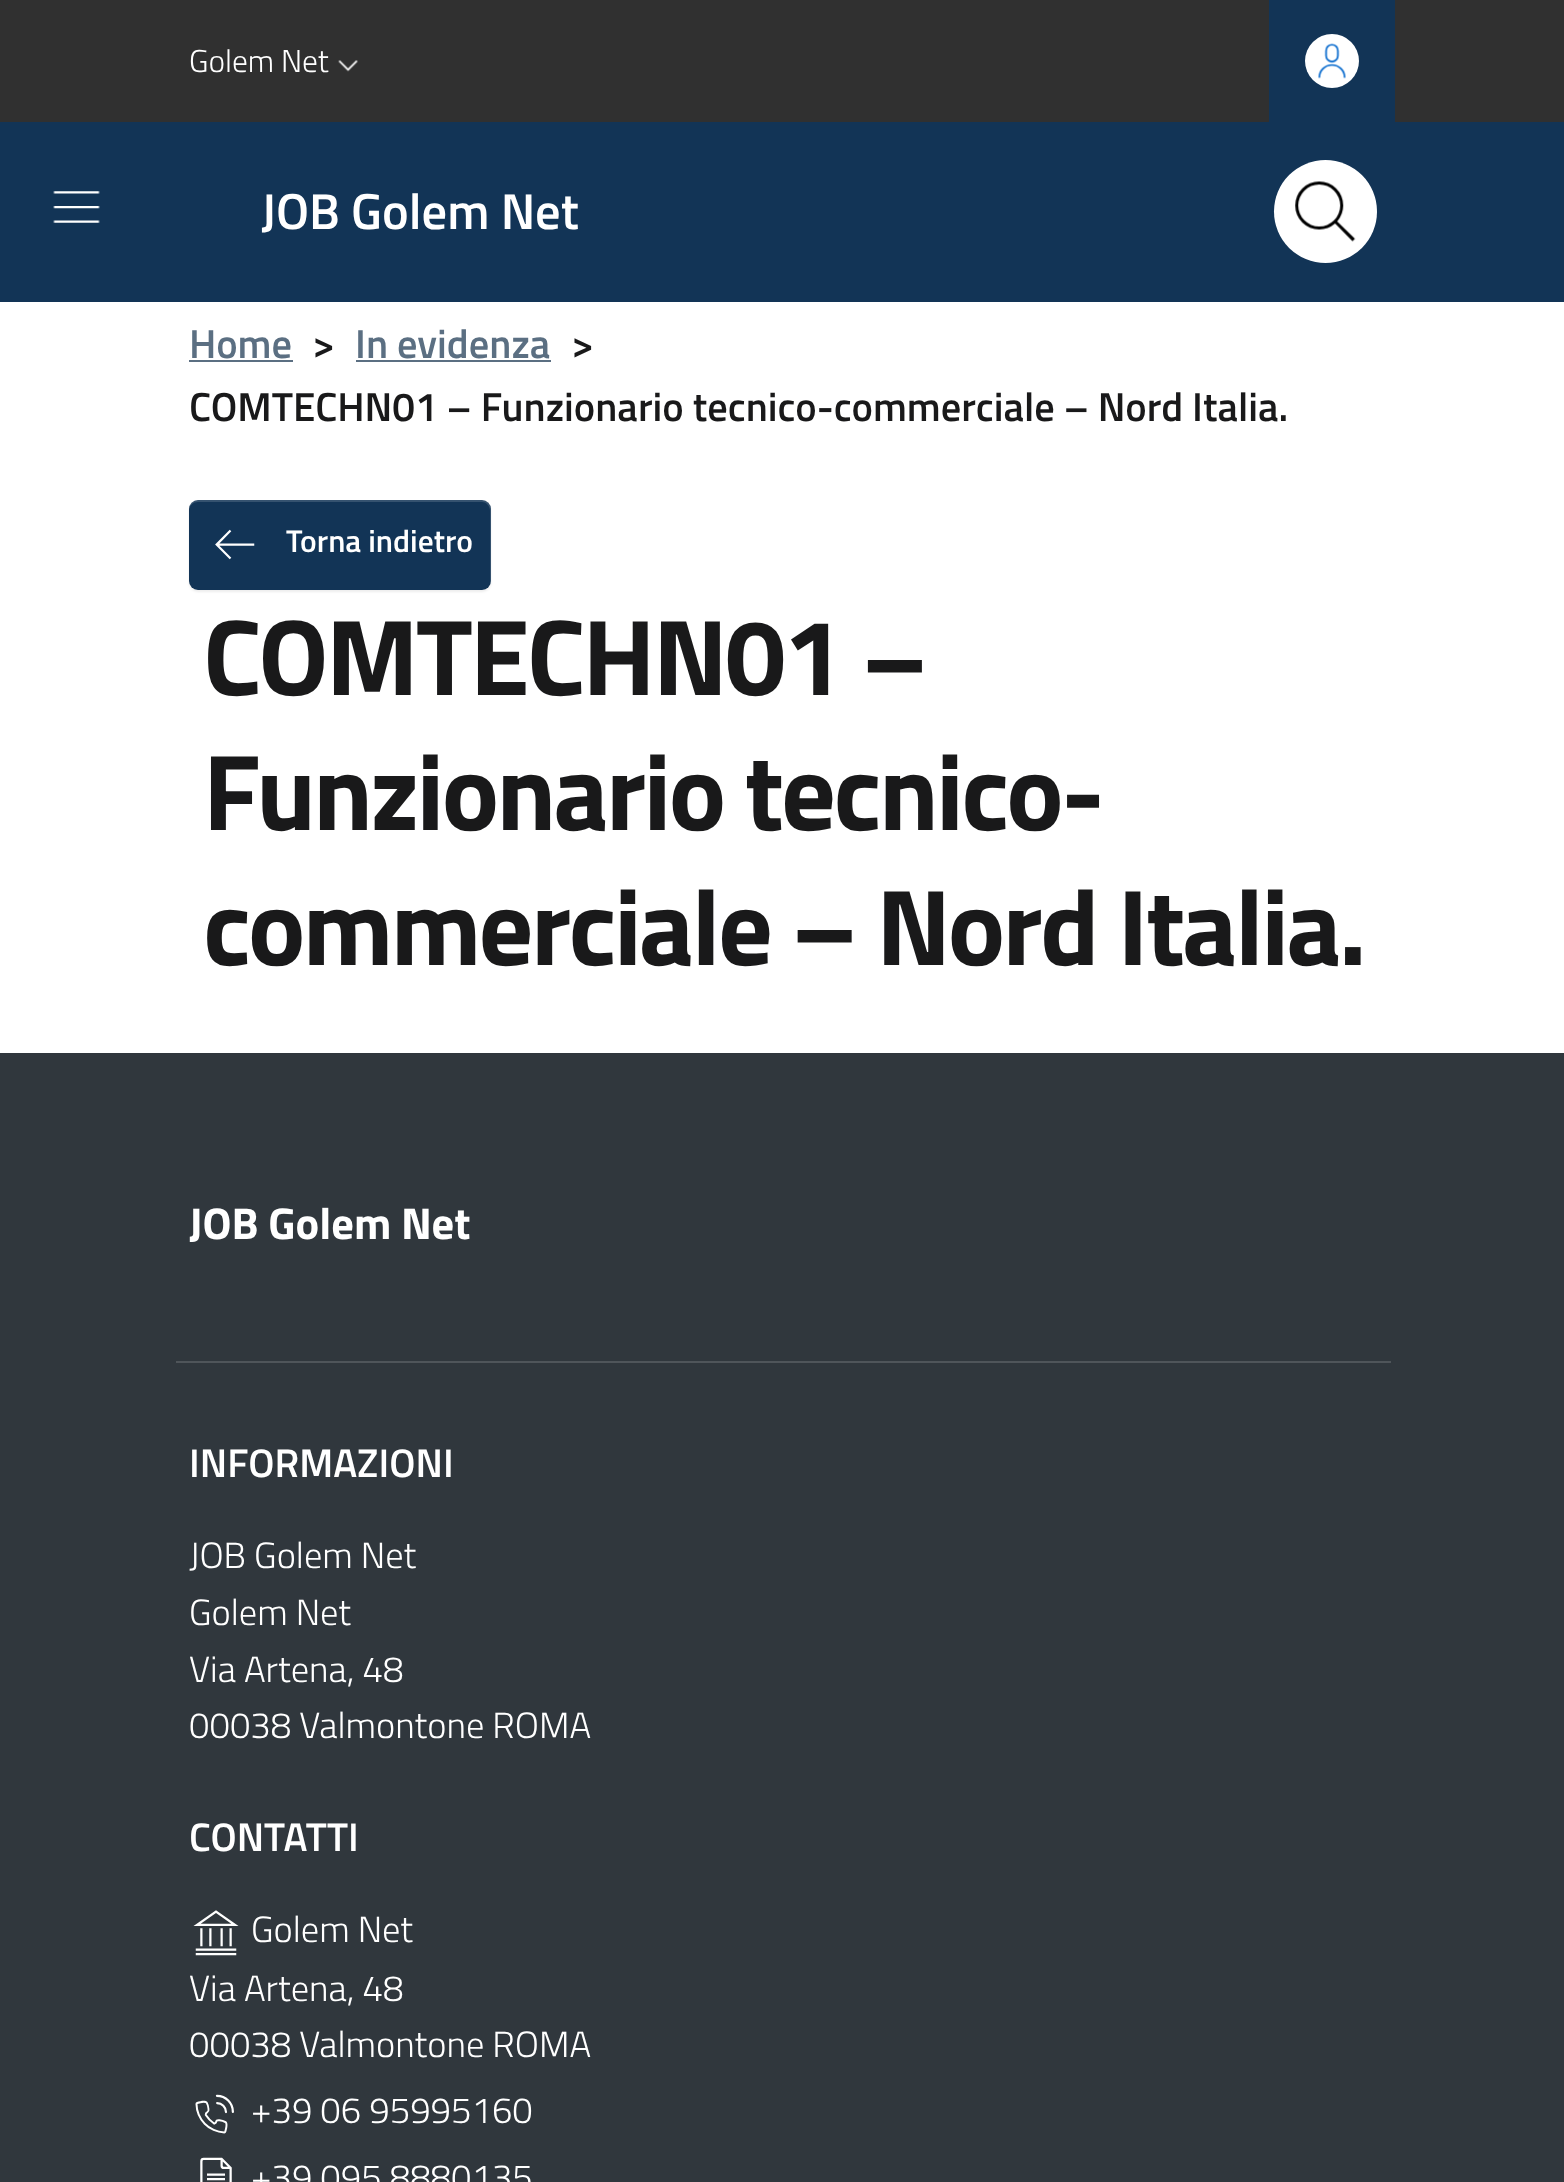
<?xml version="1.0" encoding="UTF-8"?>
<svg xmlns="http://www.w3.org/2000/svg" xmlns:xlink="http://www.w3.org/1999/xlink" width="1564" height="2182">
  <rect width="100%" height="100%" fill="#ffffff" />
  <rect width="1564" height="122" fill="#303030" />
  <image x="338" y="60" width="20" height="12" xlink:href="image1.png" />
  <rect x="1269" width="126" height="122" fill="#123456" />
  <circle cx="1332" cy="61" r="27" fill="#ffffff" />
  <image x="1318" y="43" width="28" height="36" xlink:href="image2.png" />
  <rect y="122" width="1564" height="180" fill="#123456" />
  <image x="53" y="191" width="47" height="32" xlink:href="image3.png" />
  <circle cx="1325.5" cy="211.5" r="51.5" fill="#ffffff" />
  <image x="1295" y="181" width="61" height="61" xlink:href="image4.png" />
  <rect x="189" y="360" width="104" height="2" fill="#5b6f82" />
  <rect x="356" y="360" width="195" height="2" fill="#5b6f82" />
  <rect x="189" y="502" width="302" height="90" rx="9" fill="#000000" fill-opacity="0.07" filter="blur(1px)" />
  <rect x="189" y="500" width="302" height="90" rx="9" fill="#123456" />
  <path d="M 198 502 h 284 c 4 0 8 4 8 9 v 72 v 3 c 0 -1 1 -3 1 -5 v -72 c 0 -5 -4 -9 -9 -9 h -284 c -5 0 -9 4 -9 9 v 2 c 0 -5 4 -9 9 -9 z" fill="#ffffff" fill-opacity="0.15" />
  <image x="215" y="529" width="40" height="31" xlink:href="image5.png" />
  <rect y="1053" width="1564" height="1129" fill="#30373d" />
  <rect x="176" y="1361" width="1215" height="2" fill="#4f555a" />
  <image x="193" y="1910" width="46" height="46" xlink:href="image6.png" />
  <image x="195" y="2094" width="39" height="40" xlink:href="image7.png" />
  <image x="200" y="2157" width="32" height="25" xlink:href="image8.png" />
  <text x="189" y="72" style="font-family: Titillium Web; font-size: 31.5px; font-weight: 300; fill: #ffffff">Golem Net</text>
  <text x="261" y="229" style="font-family: Titillium Web; font-size: 50.5px; font-weight: 600; fill: #ffffff">JOB Golem Net</text>
  <text x="189" y="358" style="font-family: Titillium Web; font-size: 40.5px; font-weight: 600; fill: #5b6f82">Home</text>
  <text x="312" y="358" style="font-family: Titillium Web; font-size: 40.5px; font-weight: 600; fill: #19191a">&gt;</text>
  <text x="355" y="358" style="font-family: Titillium Web; font-size: 40.5px; font-weight: 600; fill: #5b6f82">In evidenza</text>
  <text x="571" y="358" style="font-family: Titillium Web; font-size: 40.5px; font-weight: 600; fill: #19191a">&gt;</text>
  <text x="189" y="421" style="font-family: Titillium Web; font-size: 40.5px; font-weight: 600; fill: #19191a">COMTECHN01 – Funzionario tecnico-commerciale – Nord Italia.</text>
  <text x="286" y="552" style="font-family: Titillium Web; font-size: 31.5px; font-weight: 600; fill: #ffffff">Torna indietro</text>
  <text x="203" y="695" style="font-family: Titillium Web; font-size: 108px; font-weight: bold; letter-spacing: -2.7px; fill: #19191a">COMTECHN01 –</text>
  <text x="203" y="830" style="font-family: Titillium Web; font-size: 108px; font-weight: bold; letter-spacing: -2.7px; fill: #19191a">Funzionario tecnico-</text>
  <text x="203" y="965" style="font-family: Titillium Web; font-size: 108px; font-weight: bold; letter-spacing: -2.7px; fill: #19191a">commerciale – Nord Italia.</text>
  <text x="189" y="1239" style="font-family: Titillium Web; font-size: 44.5px; font-weight: bold; fill: #ffffff">JOB Golem Net</text>
  <text x="189" y="1477" style="font-family: Titillium Web; font-size: 40px; font-weight: 600; fill: #ffffff">INFORMAZIONI</text>
  <text x="189" y="1568" style="font-family: Titillium Web; font-size: 36.5px; font-weight: 300; fill: #ffffff">JOB Golem Net</text>
  <text x="189" y="1625" style="font-family: Titillium Web; font-size: 36.5px; font-weight: 300; fill: #ffffff">Golem Net</text>
  <text x="189" y="1682" style="font-family: Titillium Web; font-size: 36.5px; font-weight: 300; fill: #ffffff">Via Artena, 48</text>
  <text x="189" y="1738" style="font-family: Titillium Web; font-size: 36.5px; font-weight: 300; fill: #ffffff">00038 Valmontone ROMA</text>
  <text x="189" y="1851" style="font-family: Titillium Web; font-size: 40px; font-weight: 600; fill: #ffffff">CONTATTI</text>
  <text x="251" y="1942" style="font-family: Titillium Web; font-size: 36.5px; font-weight: 300; fill: #ffffff">Golem Net</text>
  <text x="189" y="2001" style="font-family: Titillium Web; font-size: 36.5px; font-weight: 300; fill: #ffffff">Via Artena, 48</text>
  <text x="189" y="2057" style="font-family: Titillium Web; font-size: 36.5px; font-weight: 300; fill: #ffffff">00038 Valmontone ROMA</text>
  <text x="251" y="2123" style="font-family: Titillium Web; font-size: 36.5px; font-weight: 300; fill: #ffffff">+39 06 95995160</text>
  <text x="251" y="2190" style="font-family: Titillium Web; font-size: 36.5px; font-weight: 300; fill: #ffffff">+39 095 8880135</text>
</svg>
